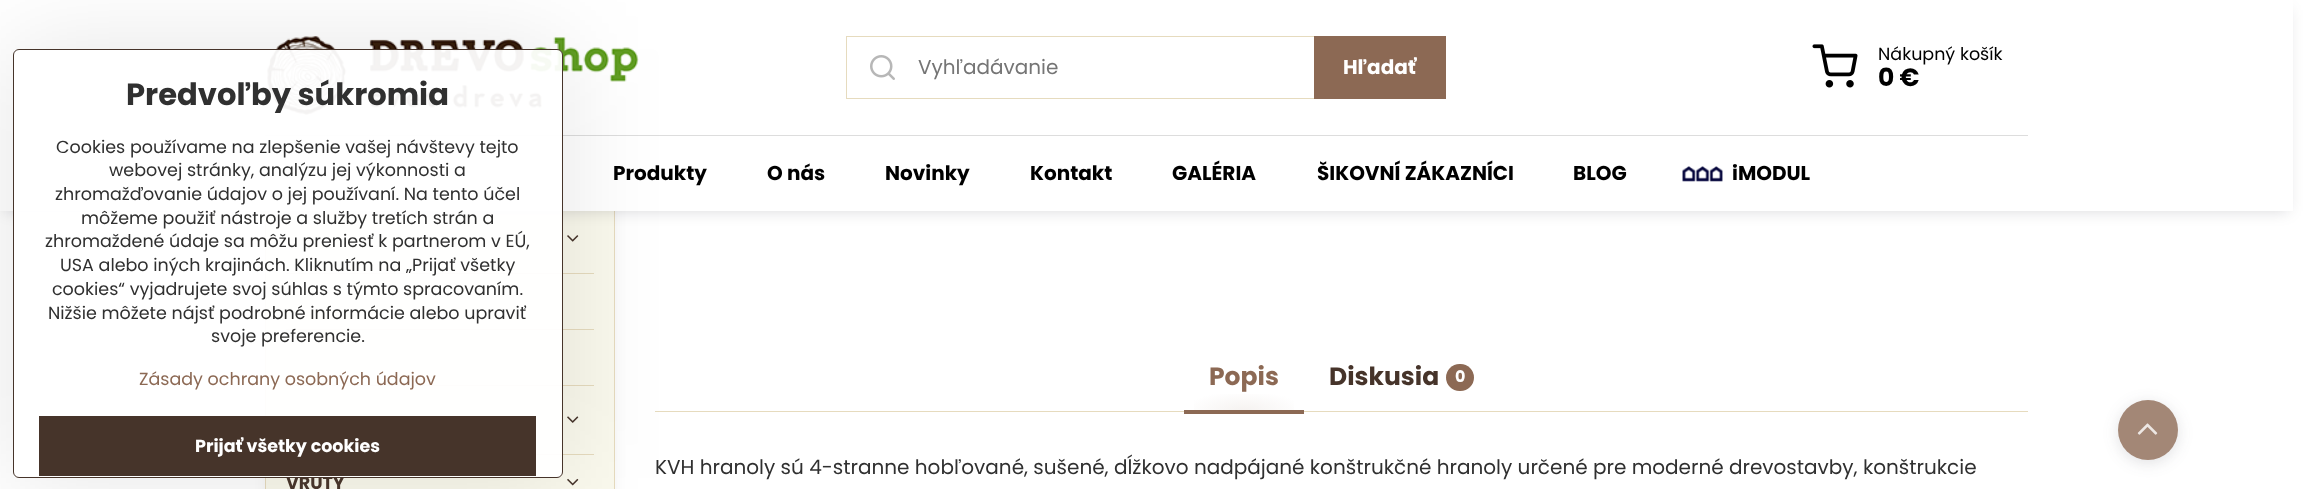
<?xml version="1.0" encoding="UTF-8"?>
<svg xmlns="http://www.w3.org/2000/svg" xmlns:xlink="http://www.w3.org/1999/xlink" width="2311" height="489">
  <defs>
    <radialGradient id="g1" gradientUnits="userSpaceOnUse" cx="0" cy="0" r="1" gradientTransform="matrix(60 0 0 20 1244 411)"><stop offset="0" stop-color="#f5f2f0" /><stop offset="1" stop-color="#ffffff" /></radialGradient>
    <clipPath id="clip1"><path d="M 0 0 h 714 v 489 h -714 z m 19 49 h 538 c 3.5 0 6 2.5 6 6 v 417 c 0 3.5 -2.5 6 -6 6 h -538 c -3.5 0 -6 -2.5 -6 -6 v -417 c 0 -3.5 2.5 -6 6 -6 z" clip-rule="evenodd" /></clipPath>
  </defs>
  <rect width="100%" height="100%" fill="#ffffff" />
  <rect x="275" y="-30" width="330" height="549" fill="#000014" fill-opacity="0.15" filter="blur(10px)" />
  <rect x="266" y="211" width="348" height="278" fill="#faf9ed" />
  <rect x="265.5" y="-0.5" width="349" height="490" fill="none" stroke="#e6dbbe" />
  <rect x="5" y="10" width="2283" height="201" fill="#000014" fill-opacity="0.15" filter="blur(7.5px)" />
  <rect width="2293" height="211" fill="#ffffff" />
  <image x="266" y="36" width="373" height="80" xlink:href="image1.png" />
  <rect x="846.5" y="36.5" width="599" height="62" fill="none" stroke="#e6dbbe" />
  <image x="870" y="55" width="25" height="25" xlink:href="image2.png" />
  <rect x="1314" y="36" width="132" height="63" fill="#8c6954" />
  <image x="1812" y="44" width="46" height="44" xlink:href="image3.png" />
  <rect x="265" y="135" width="1763" height="1" fill="#dddddd" />
  <image x="1682" y="166" width="41" height="16" xlink:href="image4.png" />
  <rect x="655" y="411" width="1373" height="1" fill="#e6dbbe" />
  <path d="M 1184 411 v 3 h 120 v -69 v 66 z" fill="#8c6954" />
  <rect x="1194" y="394" width="100" height="16" fill="url(#g1)" />
  <rect x="1184" y="410" width="120" height="1" fill="#8c6954" />
  <rect x="1446" y="364" width="28" height="27" rx="13.5" fill="#8c6954" />
  <rect x="286" y="273" width="308" height="1" fill="#e6dbbe" />
  <image x="567" y="235" width="12" height="7" xlink:href="image5.png" />
  <rect x="286" y="329" width="308" height="1" fill="#e6dbbe" />
  <rect x="286" y="385" width="308" height="1" fill="#e6dbbe" />
  <rect x="536" y="454" width="58" height="1" fill="#e6dbbe" />
  <image x="567" y="416" width="12" height="7" xlink:href="image6.png" />
  <image x="567" y="478" width="12" height="8" xlink:href="image7.png" />
  <rect x="2118" y="403" width="60" height="60" rx="30" fill="#333343" fill-opacity="0.15" filter="blur(7.5px)" />
  <circle cx="2148" cy="430" r="30" fill="#a38776" />
  <image x="2137" y="423" width="21" height="12" xlink:href="image8.png" />
  <g clip-path="url(#clip1)">
    <rect x="13" y="49" width="550" height="429" rx="6" fill="#000000" fill-opacity="0.1" filter="blur(50px)" />
  </g>
  <text x="918" y="74" style="font-family: Poppins; font-size: 20px; fill: #757575">Vyhľadávanie</text>
  <text x="1343" y="74" style="font-family: Poppins; font-size: 20px; font-weight: bold; fill: #ffffff">Hľadať</text>
  <text x="1878" y="60" style="font-family: Poppins; font-size: 17.5px; fill: #000000">Nákupný košík</text>
  <text x="1878" y="86" style="font-family: Poppins; font-size: 25px; font-weight: bold; fill: #000000">0 €</text>
  <text x="613" y="180" style="font-family: Poppins; font-size: 20px; font-weight: bold; fill: #000000">Produkty</text>
  <text x="767" y="180" style="font-family: Poppins; font-size: 20px; font-weight: bold; fill: #000000">O nás</text>
  <text x="885" y="180" style="font-family: Poppins; font-size: 20px; font-weight: bold; fill: #000000">Novinky</text>
  <text x="1030" y="180" style="font-family: Poppins; font-size: 20px; font-weight: bold; fill: #000000">Kontakt</text>
  <text x="1172" y="180" style="font-family: Poppins; font-size: 20px; font-weight: bold; fill: #000000">GALÉRIA</text>
  <text x="1317" y="180" style="font-family: Poppins; font-size: 20px; font-weight: bold; fill: #000000">ŠIKOVNÍ ZÁKAZNÍCI</text>
  <text x="1573" y="180" style="font-family: Poppins; font-size: 20px; font-weight: bold; fill: #000000">BLOG</text>
  <text x="1732" y="180" style="font-family: Poppins; font-size: 20px; font-weight: bold; fill: #000000">iMODUL</text>
  <text x="1209" y="385" style="font-family: Poppins; font-size: 25px; font-weight: bold; fill: #8c6954">Popis</text>
  <text x="1329" y="385" style="font-family: Poppins; font-size: 25px; font-weight: bold; fill: #46342a">Diskusia</text>
  <text x="1455" y="382" style="font-family: Poppins; font-size: 16px; font-weight: bold; fill: #ffffff">0</text>
  <text x="655" y="474" style="font-family: Poppins; font-size: 20px; fill: #303030">KVH hranoly sú 4-stranne hobľované, sušené, dĺžkovo nadpájané konštrukčné hranoly určené pre moderné drevostavby, konštrukcie</text>
  <text x="286" y="489" style="font-family: Poppins; font-size: 17.5px; font-weight: bold; fill: #46342a">VRUTY</text>
  <rect x="13.5" y="49.5" width="549" height="428" rx="5.5" fill="#ffffff" fill-opacity="0.95" stroke="#46342a" />
  <text x="126" y="105" style="font-family: Poppins; font-size: 30.6px; font-weight: bold; fill: #303030">Predvoľby súkromia</text>
  <text x="56" y="153" style="font-family: Poppins; font-size: 17.5px; fill: #303030">Cookies používame na zlepšenie vašej návštevy tejto</text>
  <text x="109" y="176" style="font-family: Poppins; font-size: 17.5px; fill: #303030">webovej stránky, analýzu jej výkonnosti a</text>
  <text x="55" y="200" style="font-family: Poppins; font-size: 17.5px; fill: #303030">zhromažďovanie údajov o jej používaní. Na tento účel</text>
  <text x="81" y="224" style="font-family: Poppins; font-size: 17.5px; fill: #303030">môžeme použiť nástroje a služby tretích strán a</text>
  <text x="45" y="247" style="font-family: Poppins; font-size: 17.5px; fill: #303030">zhromaždené údaje sa môžu preniesť k partnerom v EÚ,</text>
  <text x="60" y="271" style="font-family: Poppins; font-size: 17.5px; fill: #303030">USA alebo iných krajinách. Kliknutím na „Prijať všetky</text>
  <text x="52" y="295" style="font-family: Poppins; font-size: 17.5px; fill: #303030">cookies“ vyjadrujete svoj súhlas s týmto spracovaním.</text>
  <text x="48" y="319" style="font-family: Poppins; font-size: 17.5px; fill: #303030">Nižšie môžete nájsť podrobné informácie alebo upraviť</text>
  <text x="211" y="342" style="font-family: Poppins; font-size: 17.5px; fill: #303030">svoje preferencie.</text>
  <text x="139" y="385" style="font-family: Poppins; font-size: 17.5px; fill: #8c6954">Zásady ochrany osobných údajov</text>
  <rect x="39" y="416" width="497" height="60" fill="#46342a" />
  <text x="195" y="452" style="font-family: Poppins; font-size: 17.5px; font-weight: bold; fill: #ffffff">Prijať všetky cookies</text>
</svg>
